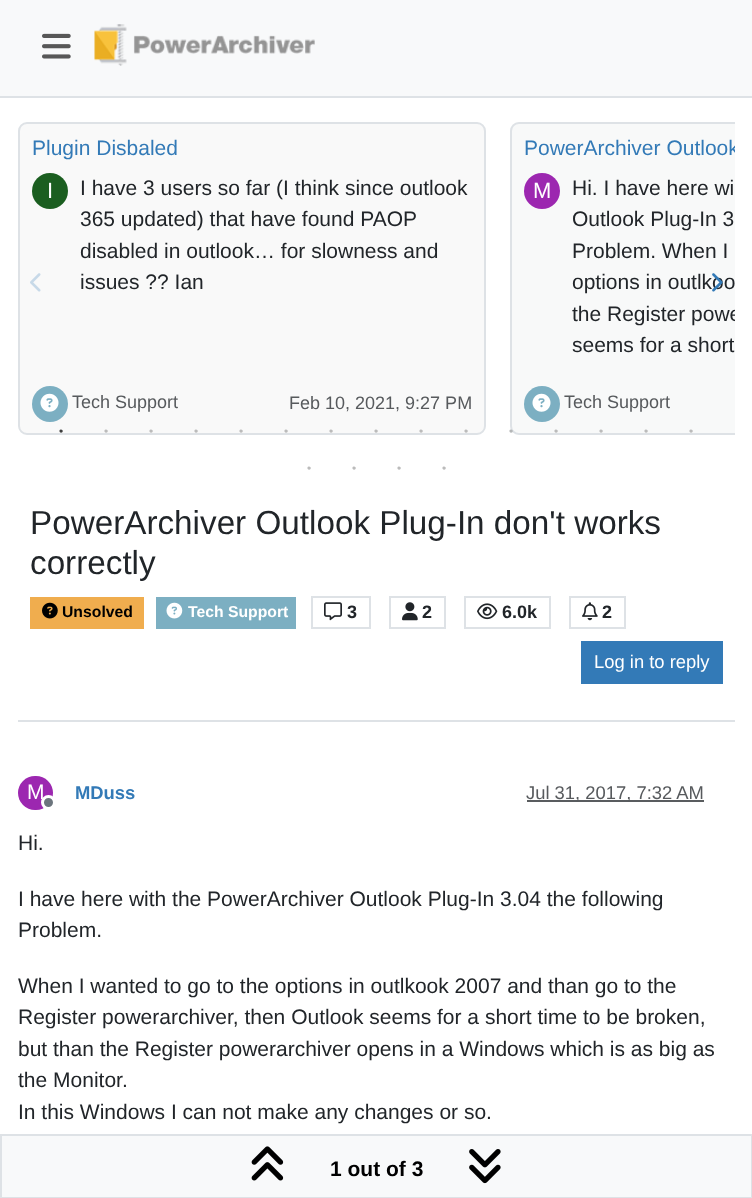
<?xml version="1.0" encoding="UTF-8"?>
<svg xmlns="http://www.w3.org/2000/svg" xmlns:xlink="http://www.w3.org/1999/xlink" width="752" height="1198">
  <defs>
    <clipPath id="clip1"><rect x="18" y="122" width="717" height="325" /></clipPath>
    <clipPath id="clip2"><rect x="524" y="135" width="211" height="26" /></clipPath>
    <clipPath id="clip3"><rect x="524" y="135" width="211" height="227" /></clipPath>
  </defs>
  <rect width="100%" height="100%" fill="#ffffff" />
  <rect width="752" height="96" fill="#f8f9fa" />
  <rect y="96" width="752" height="2" fill="#dee2e6" />
  <image x="42" y="33" width="29" height="26" xlink:href="image1.png" />
  <image x="94" y="24" width="221" height="42" xlink:href="image2.png" />
  <rect x="19" y="123" width="466" height="311" rx="8" fill="#f9f9f9" stroke="#dee2e6" stroke-width="2" />
  <circle cx="50" cy="191" r="18" fill="#1b5e20" />
  <circle cx="50" cy="404" r="18" fill="#7cafc2" />
  <image x="40" y="393" width="19" height="19" xlink:href="image3.png" />
  <path d="M 519 122 h 216 v 313 h -216 c -5 0 -9 -4 -9 -9 v -295 c 0 -5 4 -9 9 -9 z" fill="#f8f9f9" />
  <g clip-path="url(#clip1)">
    <rect x="511" y="123" width="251" height="311" rx="8" fill="none" stroke="#dee2e6" stroke-width="2" />
  </g>
  <circle cx="542" cy="191" r="18" fill="#9c27b0" />
  <circle cx="542" cy="404" r="18" fill="#7cafc2" />
  <image x="532" y="393" width="19" height="19" xlink:href="image3.png" />
  <image x="30" y="273" width="11" height="19" xlink:href="image4.png" />
  <rect x="18" y="720" width="717" height="2" fill="#dee2e6" />
  <rect x="30" y="597" width="114" height="32" fill="#f0ad4e" />
  <image x="42" y="602" width="16" height="17" xlink:href="image6.png" />
  <rect x="156" y="597" width="140" height="32" fill="#7cafc2" />
  <image x="166" y="602" width="17" height="17" xlink:href="image7.png" />
  <rect x="312" y="597" width="58" height="31" fill="none" stroke="#dee2e6" stroke-width="2" />
  <image x="324" y="602" width="18" height="19" xlink:href="image8.png" />
  <rect x="390" y="597" width="55" height="31" fill="none" stroke="#dee2e6" stroke-width="2" />
  <image x="402" y="602" width="16" height="19" xlink:href="image9.png" />
  <rect x="465" y="597" width="85" height="31" fill="none" stroke="#dee2e6" stroke-width="2" />
  <image x="477" y="603" width="21" height="17" xlink:href="image10.png" />
  <rect x="570" y="597" width="55" height="31" fill="none" stroke="#dee2e6" stroke-width="2" />
  <image x="582" y="602" width="16" height="19" xlink:href="image11.png" />
  <rect x="581" y="641" width="142" height="43" fill="#337ab7" />
  <rect x="18" y="776" width="35" height="34" rx="17" fill="#9c27b0" />
  <rect x="527" y="800" width="177" height="2" fill="#595c5f" />
  <rect x="1" y="1135" width="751" height="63" fill="#f8f9fa" stroke="#dee2e6" stroke-width="2" />
  <image x="251" y="1146" width="33" height="35" xlink:href="image12.png" />
  <image x="469" y="1149" width="32" height="35" xlink:href="image13.png" />
  <text x="32" y="155" style="font-family: Liberation Sans; font-size: 21px; fill: #337ab7">Plugin Disbaled</text>
  <text x="47" y="198" style="font-family: Liberation Sans; font-size: 22px; fill: #ffffff">I</text>
  <text x="80" y="195" style="font-family: Liberation Sans; font-size: 21px; fill: #212529">I have 3 users so far (I think since outlook</text>
  <text x="80" y="226" style="font-family: Liberation Sans; font-size: 21px; fill: #212529">365 updated) that have found PAOP</text>
  <text x="80" y="258" style="font-family: Liberation Sans; font-size: 21px; fill: #212529">disabled in outlook… for slowness and</text>
  <text x="80" y="289" style="font-family: Liberation Sans; font-size: 21px; fill: #212529">issues ?? Ian</text>
  <text x="72" y="408" style="font-family: Liberation Sans; font-size: 18px; fill: #575a5d">Tech Support</text>
  <text x="289" y="409" style="font-family: Liberation Sans; font-size: 18px; fill: #575a5d">Feb 10, 2021, 9:27 PM</text>
  <g clip-path="url(#clip2)">
    <text x="524" y="155" style="font-family: Liberation Sans; font-size: 21px; fill: #337ab7">PowerArchiver Outlook</text>
  </g>
  <text x="533" y="198" style="font-family: Liberation Sans; font-size: 22px; fill: #ffffff">M</text>
  <text x="572" y="195" style="font-family: Liberation Sans; font-size: 21px; fill: #212529">Hi. I have here wi</text>
  <text x="572" y="226" style="font-family: Liberation Sans; font-size: 21px; fill: #212529">Outlook Plug-In 3</text>
  <text x="572" y="258" style="font-family: Liberation Sans; font-size: 21px; fill: #212529">Problem. When I</text>
  <text x="572" y="289" style="font-family: Liberation Sans; font-size: 21px; fill: #212529">options in outlkoo</text>
  <g clip-path="url(#clip3)">
    <text x="572" y="321" style="font-family: Liberation Sans; font-size: 21px; fill: #212529">the Register powe</text>
  </g>
  <text x="572" y="352" style="font-family: Liberation Sans; font-size: 21px; fill: #212529">seems for a short</text>
  <text x="564" y="408" style="font-family: Liberation Sans; font-size: 18px; fill: #575a5d">Tech Support</text>
  <image x="712" y="273" width="11" height="19" xlink:href="image5.png" />
  <text x="59" y="435" style="font-family: Liberation Sans; font-size: 12px; fill: #3e3e3e">•</text>
  <text x="104" y="435" style="font-family: Liberation Sans; font-size: 12px; fill: #bbbbbb">•</text>
  <text x="149" y="435" style="font-family: Liberation Sans; font-size: 12px; fill: #bbbbbb">•</text>
  <text x="194" y="435" style="font-family: Liberation Sans; font-size: 12px; fill: #bbbbbb">•</text>
  <text x="239" y="435" style="font-family: Liberation Sans; font-size: 12px; fill: #bbbbbb">•</text>
  <text x="284" y="435" style="font-family: Liberation Sans; font-size: 12px; fill: #bbbbbb">•</text>
  <text x="329" y="435" style="font-family: Liberation Sans; font-size: 12px; fill: #bbbbbb">•</text>
  <text x="374" y="435" style="font-family: Liberation Sans; font-size: 12px; fill: #bbbbbb">•</text>
  <text x="419" y="435" style="font-family: Liberation Sans; font-size: 12px; fill: #bbbbbb">•</text>
  <text x="464" y="435" style="font-family: Liberation Sans; font-size: 12px; fill: #bbbbbb">•</text>
  <text x="509" y="435" style="font-family: Liberation Sans; font-size: 12px; fill: #b4b6b7">•</text>
  <text x="554" y="435" style="font-family: Liberation Sans; font-size: 12px; fill: #bbbbbb">•</text>
  <text x="599" y="435" style="font-family: Liberation Sans; font-size: 12px; fill: #bbbbbb">•</text>
  <text x="644" y="435" style="font-family: Liberation Sans; font-size: 12px; fill: #bbbbbb">•</text>
  <text x="689" y="435" style="font-family: Liberation Sans; font-size: 12px; fill: #bbbbbb">•</text>
  <text x="307" y="472" style="font-family: Liberation Sans; font-size: 12px; fill: #bbbbbb">•</text>
  <text x="352" y="472" style="font-family: Liberation Sans; font-size: 12px; fill: #bbbbbb">•</text>
  <text x="397" y="472" style="font-family: Liberation Sans; font-size: 12px; fill: #bbbbbb">•</text>
  <text x="442" y="472" style="font-family: Liberation Sans; font-size: 12px; fill: #bbbbbb">•</text>
  <text x="30" y="534" style="font-family: Liberation Sans; font-size: 33.25px; fill: #212529">PowerArchiver Outlook Plug-In don't works</text>
  <text x="30" y="574" style="font-family: Liberation Sans; font-size: 33.25px; fill: #212529">correctly</text>
  <text x="62" y="617" style="font-family: Liberation Sans; font-size: 15.75px; font-weight: bold; fill: #000000">Unsolved</text>
  <text x="188" y="617" style="font-family: Liberation Sans; font-size: 15.75px; font-weight: bold; fill: #ffffff">Tech Support</text>
  <text x="347" y="618" style="font-family: Liberation Sans; font-size: 18px; font-weight: bold; fill: #212529">3</text>
  <text x="422" y="618" style="font-family: Liberation Sans; font-size: 18px; font-weight: bold; fill: #212529">2</text>
  <text x="502" y="618" style="font-family: Liberation Sans; font-size: 18px; font-weight: bold; fill: #212529">6.0k</text>
  <text x="602" y="618" style="font-family: Liberation Sans; font-size: 18px; font-weight: bold; fill: #212529">2</text>
  <text x="594" y="668" style="font-family: Liberation Sans; font-size: 18.4px; fill: #ffffff">Log in to reply</text>
  <text x="27" y="799" style="font-family: Liberation Sans; font-size: 21px; fill: #ffffff">M</text>
  <circle cx="48.5" cy="802.5" r="6" fill="#6c757d" stroke="#ffffff" stroke-width="3" />
  <text x="75" y="799" style="font-family: Liberation Sans; font-size: 18.4px; font-weight: bold; fill: #337ab7">MDuss</text>
  <text x="526" y="799" style="font-family: Liberation Sans; font-size: 18.4px; fill: #575a5d">Jul 31, 2017, 7:32 AM</text>
  <text x="18" y="850" style="font-family: Liberation Sans; font-size: 21px; fill: #212529">Hi.</text>
  <text x="18" y="906" style="font-family: Liberation Sans; font-size: 21px; fill: #212529">I have here with the PowerArchiver Outlook Plug-In 3.04 the following</text>
  <text x="18" y="937" style="font-family: Liberation Sans; font-size: 21px; fill: #212529">Problem.</text>
  <text x="18" y="993" style="font-family: Liberation Sans; font-size: 21px; fill: #212529">When I wanted to go to the options in outlkook 2007 and than go to the</text>
  <text x="18" y="1024" style="font-family: Liberation Sans; font-size: 21px; fill: #212529">Register powerarchiver, then Outlook seems for a short time to be broken,</text>
  <text x="18" y="1056" style="font-family: Liberation Sans; font-size: 21px; fill: #212529">but than the Register powerarchiver opens in a Windows which is as big as</text>
  <text x="18" y="1087" style="font-family: Liberation Sans; font-size: 21px; fill: #212529">the Monitor.</text>
  <text x="18" y="1119" style="font-family: Liberation Sans; font-size: 21px; fill: #212529">In this Windows I can not make any changes or so.</text>
  <text x="330" y="1176" style="font-family: Liberation Sans; font-size: 21px; font-weight: bold; fill: #000000">1 out of 3</text>
</svg>
